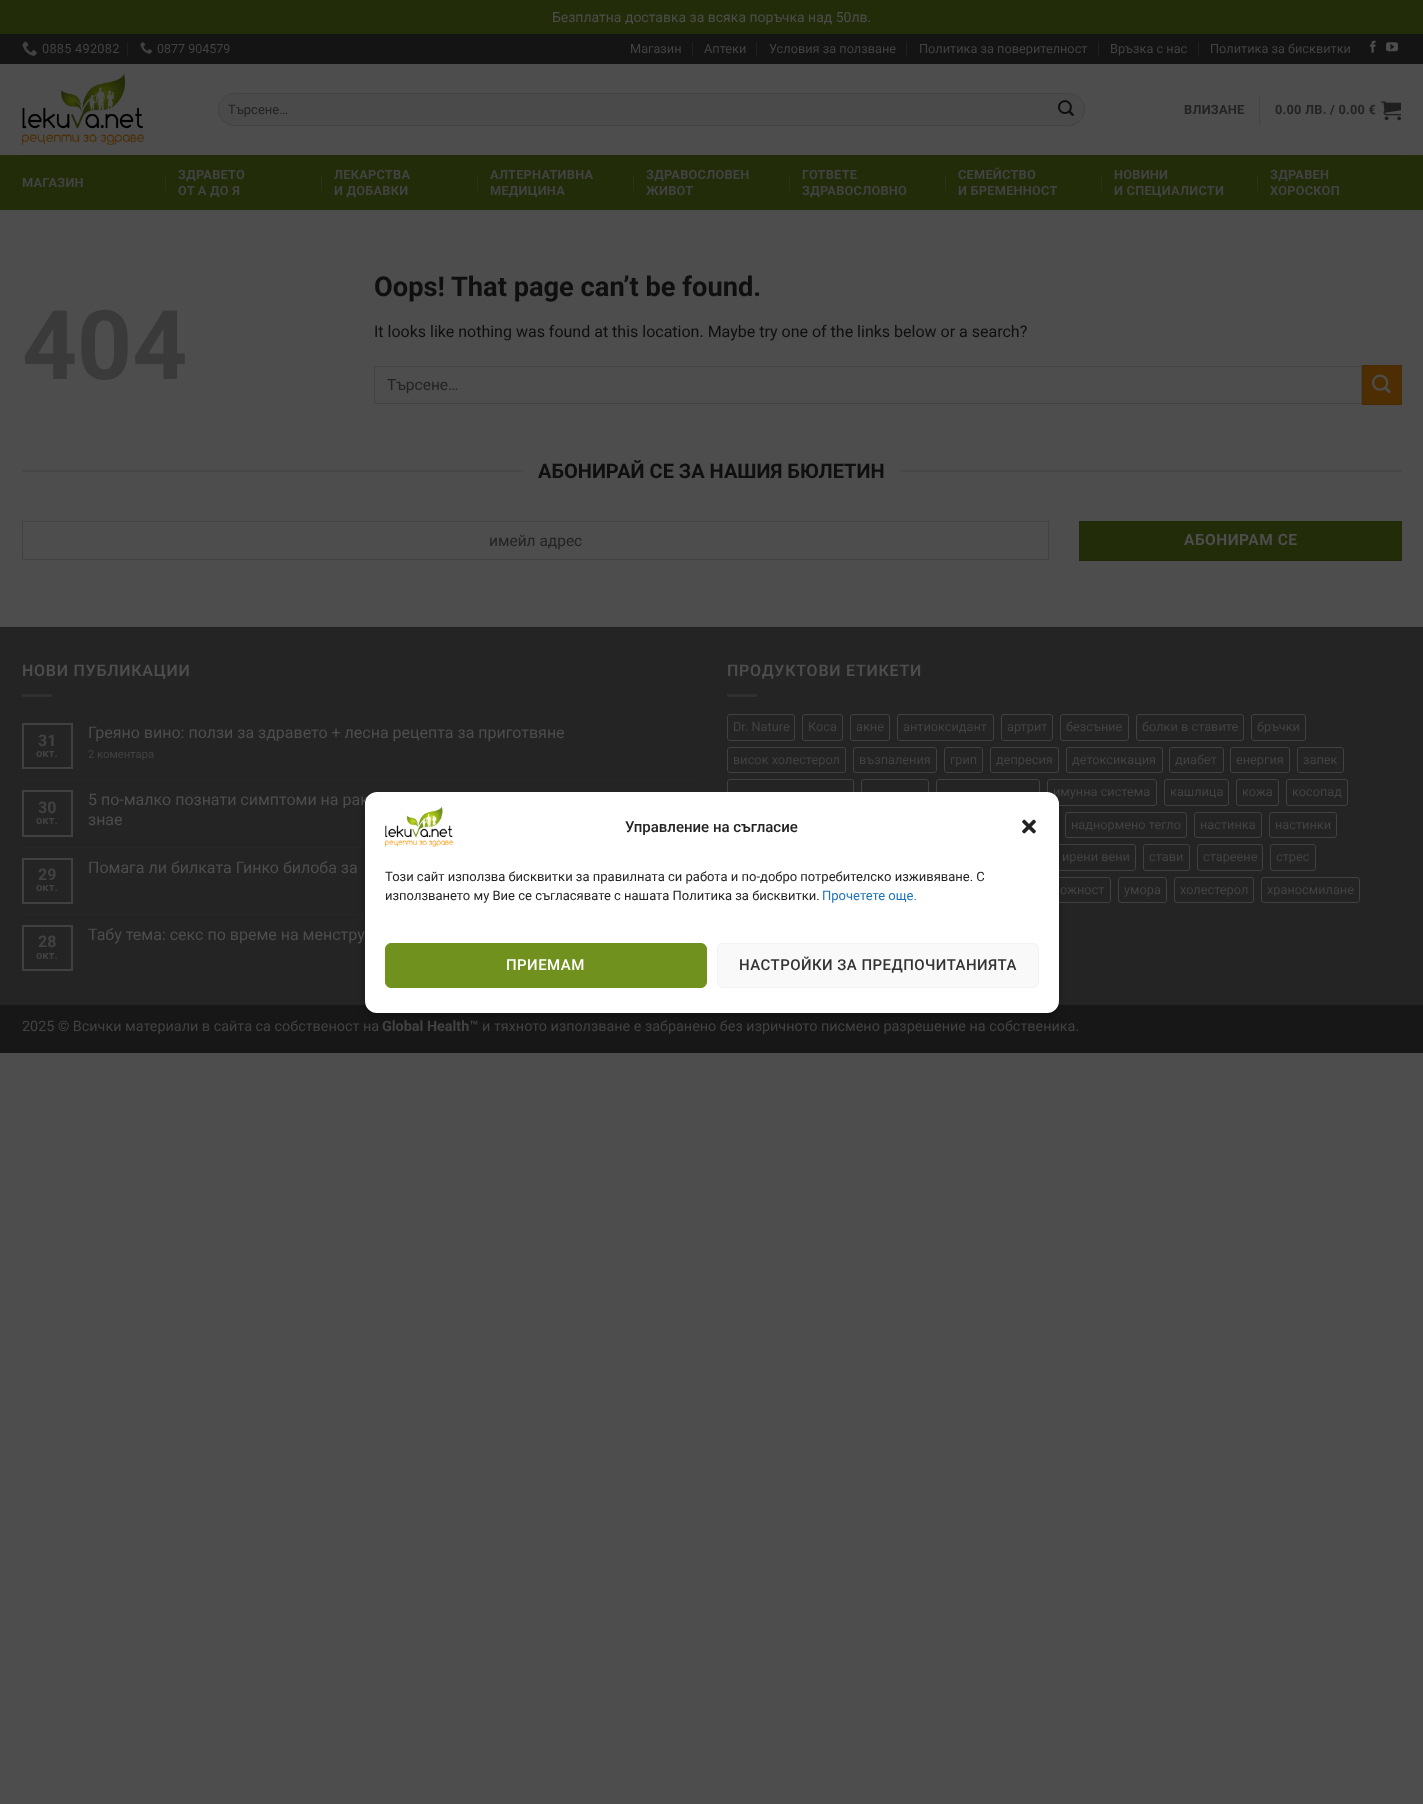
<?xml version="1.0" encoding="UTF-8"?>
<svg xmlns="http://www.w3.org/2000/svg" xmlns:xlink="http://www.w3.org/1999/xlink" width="1423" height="1804">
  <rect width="100%" height="100%" fill="#4d4d4d" />
  <rect width="1423" height="34" fill="#222c09" />
  <rect y="34" width="1423" height="30" fill="#141414" />
  <image x="22" y="41" width="15" height="15" xlink:href="image1.png" />
  <rect x="127" y="42" width="1" height="15" fill="#1f1f1f" />
  <image x="140" y="42" width="12" height="12" xlink:href="image2.png" />
  <rect x="692" y="42" width="1" height="15" fill="#1f1f1f" />
  <rect x="756" y="42" width="1" height="15" fill="#1f1f1f" />
  <rect x="906" y="42" width="1" height="15" fill="#1f1f1f" />
  <rect x="1098" y="42" width="1" height="15" fill="#1f1f1f" />
  <rect x="1198" y="42" width="1" height="15" fill="#1f1f1f" />
  <image x="1370" y="40" width="6" height="13" xlink:href="image3.png" />
  <image x="1386" y="42" width="12" height="10" xlink:href="image4.png" />
  <image x="22" y="74" width="122" height="71" xlink:href="image5.png" />
  <rect x="218" y="93" width="867" height="33" rx="16.5" fill="#4a4a4a" />
  <rect x="218.5" y="93.5" width="866" height="32" rx="16" fill="none" stroke="#000000" stroke-opacity="0.09" />
  <image x="1058" y="100" width="16" height="16" xlink:href="image6.png" />
  <rect x="1259" y="95" width="1" height="30" fill="#454545" />
  <image x="1381" y="101" width="20" height="20" xlink:href="image7.png" />
  <rect y="155" width="1423" height="55" fill="#222c09" />
  <rect x="22" y="155" width="1380" height="1" fill="#20290a" />
  <rect x="165" y="176" width="1" height="15" fill="#2a3217" />
  <rect x="321" y="176" width="1" height="15" fill="#2a3217" />
  <rect x="477" y="176" width="1" height="15" fill="#2a3217" />
  <rect x="633" y="176" width="1" height="15" fill="#2a3217" />
  <rect x="789" y="176" width="1" height="15" fill="#2a3217" />
  <rect x="945" y="176" width="1" height="15" fill="#2a3217" />
  <rect x="1101" y="176" width="1" height="15" fill="#2a3217" />
  <rect x="1257" y="176" width="1" height="15" fill="#2a3217" />
  <rect x="374.5" y="366.5" width="987" height="37" fill="none" stroke="#424242" />
  <rect x="1362.5" y="365.5" width="39" height="39" fill="#4d2d02" stroke="#492b02" />
  <image x="1372" y="374" width="19" height="20" xlink:href="image8.png" />
  <rect x="22" y="470" width="501" height="2" fill="#474747" />
  <rect x="900" y="470" width="502" height="2" fill="#474747" />
  <rect x="22.5" y="521.5" width="1026" height="38" fill="none" stroke="#424242" />
  <rect x="1079.5" y="521.5" width="322" height="39" fill="#222c09" stroke="#202909" />
  <rect y="628" width="1423" height="377" fill="#242424" />
  <rect y="627" width="1423" height="1" fill="#222222" />
  <rect x="22" y="694" width="30" height="3" fill="#303030" />
  <rect x="23" y="724" width="49" height="44" fill="none" stroke="#404040" stroke-width="2" />
  <rect x="22" y="779" width="675" height="1" fill="#272727" />
  <rect x="23" y="791" width="49" height="45" fill="none" stroke="#404040" stroke-width="2" />
  <rect x="22" y="847" width="343" height="1" fill="#272727" />
  <rect x="23" y="859" width="49" height="44" fill="none" stroke="#404040" stroke-width="2" />
  <rect x="22" y="914" width="343" height="1" fill="#272727" />
  <rect x="23" y="926" width="49" height="44" fill="none" stroke="#404040" stroke-width="2" />
  <rect x="727" y="694" width="30" height="3" fill="#303030" />
  <rect x="727.5" y="714.5" width="67" height="26" rx="2.5" fill="none" stroke="#414141" />
  <rect x="802.5" y="714.5" width="40" height="26" rx="2.5" fill="none" stroke="#414141" />
  <rect x="850.5" y="714.5" width="39" height="26" rx="2.5" fill="none" stroke="#414141" />
  <rect x="897.5" y="714.5" width="96" height="26" rx="2.5" fill="none" stroke="#414141" />
  <rect x="1001.5" y="714.5" width="51" height="26" rx="2.5" fill="none" stroke="#414141" />
  <rect x="1060.5" y="714.5" width="68" height="26" rx="2.5" fill="none" stroke="#414141" />
  <rect x="1136.5" y="714.5" width="107" height="26" rx="2.5" fill="none" stroke="#414141" />
  <rect x="1251.5" y="714.5" width="54" height="26" rx="2.5" fill="none" stroke="#414141" />
  <rect x="727.5" y="747.5" width="118" height="25" rx="2.5" fill="none" stroke="#414141" />
  <rect x="853.5" y="747.5" width="83" height="25" rx="2.5" fill="none" stroke="#414141" />
  <rect x="944.5" y="747.5" width="38" height="25" rx="2.5" fill="none" stroke="#414141" />
  <rect x="990.5" y="747.5" width="68" height="25" rx="2.5" fill="none" stroke="#414141" />
  <rect x="1066.5" y="747.5" width="96" height="25" rx="2.5" fill="none" stroke="#414141" />
  <rect x="1169.5" y="747.5" width="54" height="25" rx="2.5" fill="none" stroke="#414141" />
  <rect x="1230.5" y="747.5" width="59" height="25" rx="2.5" fill="none" stroke="#414141" />
  <rect x="1297.5" y="747.5" width="46" height="25" rx="2.5" fill="none" stroke="#414141" />
  <rect x="727.5" y="779.5" width="126" height="26" rx="2.5" fill="none" stroke="#414141" />
  <rect x="861.5" y="779.5" width="67" height="26" rx="2.5" fill="none" stroke="#414141" />
  <rect x="936.5" y="779.5" width="103" height="26" rx="2.5" fill="none" stroke="#414141" />
  <rect x="1047.5" y="779.5" width="109" height="26" rx="2.5" fill="none" stroke="#414141" />
  <rect x="1164.5" y="779.5" width="64" height="26" rx="2.5" fill="none" stroke="#414141" />
  <rect x="1236.5" y="779.5" width="42" height="26" rx="2.5" fill="none" stroke="#414141" />
  <rect x="1286.5" y="779.5" width="61" height="26" rx="2.5" fill="none" stroke="#414141" />
  <rect x="1065.5" y="812.5" width="121" height="25" rx="2.5" fill="none" stroke="#414141" />
  <rect x="1194.5" y="812.5" width="67" height="25" rx="2.5" fill="none" stroke="#414141" />
  <rect x="1269.5" y="812.5" width="67" height="25" rx="2.5" fill="none" stroke="#414141" />
  <rect x="1025.5" y="844.5" width="110" height="26" rx="2.5" fill="none" stroke="#414141" />
  <rect x="1143.5" y="844.5" width="46" height="26" rx="2.5" fill="none" stroke="#414141" />
  <rect x="1197.5" y="844.5" width="65" height="26" rx="2.5" fill="none" stroke="#414141" />
  <rect x="1270.5" y="844.5" width="45" height="26" rx="2.5" fill="none" stroke="#414141" />
  <rect x="1027.5" y="877.5" width="83" height="25" rx="2.5" fill="none" stroke="#414141" />
  <rect x="1118.5" y="877.5" width="48" height="25" rx="2.5" fill="none" stroke="#414141" />
  <rect x="1174.5" y="877.5" width="79" height="25" rx="2.5" fill="none" stroke="#414141" />
  <rect x="1261.5" y="877.5" width="98" height="25" rx="2.5" fill="none" stroke="#414141" />
  <rect y="1005" width="1423" height="48" fill="#171717" />
  <rect x="365" y="798" width="694" height="221" rx="12" fill="#000000" fill-opacity="0.23" filter="blur(3px)" />
  <text x="552" y="22" style="font-family: Roboto; font-size: 14px; fill: #4d4d4d">Безплатна доставка за всяка поръчка над 50лв.</text>
  <text x="42" y="53" style="font-family: Roboto; font-size: 12.75px; letter-spacing: 0.25px; fill: #424242">0885 492082</text>
  <text x="157" y="53" style="font-family: Roboto; font-size: 12.5px; fill: #424242">0877 904579</text>
  <text x="630" y="53" style="font-family: Roboto; font-size: 12.75px; fill: #424242">Магазин</text>
  <text x="704" y="53" style="font-family: Roboto; font-size: 12.75px; fill: #424242">Аптеки</text>
  <text x="769" y="53" style="font-family: Roboto; font-size: 12.75px; fill: #424242">Условия за ползване</text>
  <text x="919" y="53" style="font-family: Roboto; font-size: 12.75px; fill: #424242">Политика за поверителност</text>
  <text x="1110" y="53" style="font-family: Roboto; font-size: 12.75px; fill: #424242">Връзка с нас</text>
  <text x="1210" y="53" style="font-family: Roboto; font-size: 12.75px; fill: #424242">Политика за бисквитки</text>
  <text x="228" y="114" style="font-family: Roboto; font-size: 13px; fill: #232323">Търсене…</text>
  <text x="1184" y="114" style="font-family: Roboto; font-size: 12.75px; font-weight: bold; letter-spacing: 0.25px; fill: #232323">ВЛИЗАНЕ</text>
  <text x="1275" y="114" style="font-family: Roboto; font-size: 12.75px; font-weight: bold; letter-spacing: 0.25px; fill: #232323">0.00 ЛВ. / 0.00 €</text>
  <text x="22" y="187" style="font-family: Roboto; font-size: 12.75px; font-weight: bold; letter-spacing: 0.25px; fill: #424242">МАГАЗИН</text>
  <text x="178" y="179" style="font-family: Roboto; font-size: 12.75px; font-weight: bold; letter-spacing: 0.25px; fill: #424242">ЗДРАВЕТО</text>
  <text x="178" y="195" style="font-family: Roboto; font-size: 12.75px; font-weight: bold; letter-spacing: 0.25px; fill: #424242">ОТ А ДО Я</text>
  <text x="334" y="179" style="font-family: Roboto; font-size: 12.75px; font-weight: bold; letter-spacing: 0.25px; fill: #424242">ЛЕКАРСТВА</text>
  <text x="334" y="195" style="font-family: Roboto; font-size: 12.75px; font-weight: bold; letter-spacing: 0.25px; fill: #424242">И ДОБАВКИ</text>
  <text x="490" y="179" style="font-family: Roboto; font-size: 12.75px; font-weight: bold; letter-spacing: 0.25px; fill: #424242">АЛТЕРНАТИВНА</text>
  <text x="490" y="195" style="font-family: Roboto; font-size: 12.75px; font-weight: bold; letter-spacing: 0.25px; fill: #424242">МЕДИЦИНА</text>
  <text x="646" y="179" style="font-family: Roboto; font-size: 12.75px; font-weight: bold; letter-spacing: 0.25px; fill: #424242">ЗДРАВОСЛОВЕН</text>
  <text x="646" y="195" style="font-family: Roboto; font-size: 12.75px; font-weight: bold; letter-spacing: 0.25px; fill: #424242">ЖИВОТ</text>
  <text x="802" y="179" style="font-family: Roboto; font-size: 12.75px; font-weight: bold; letter-spacing: 0.25px; fill: #424242">ГОТВЕТЕ</text>
  <text x="802" y="195" style="font-family: Roboto; font-size: 12.75px; font-weight: bold; letter-spacing: 0.25px; fill: #424242">ЗДРАВОСЛОВНО</text>
  <text x="958" y="179" style="font-family: Roboto; font-size: 12.75px; font-weight: bold; letter-spacing: 0.25px; fill: #424242">СЕМЕЙСТВО</text>
  <text x="958" y="195" style="font-family: Roboto; font-size: 12.75px; font-weight: bold; letter-spacing: 0.25px; fill: #424242">И БРЕМЕННОСТ</text>
  <text x="1114" y="179" style="font-family: Roboto; font-size: 12.75px; font-weight: bold; letter-spacing: 0.25px; fill: #424242">НОВИНИ</text>
  <text x="1114" y="195" style="font-family: Roboto; font-size: 12.75px; font-weight: bold; letter-spacing: 0.25px; fill: #424242">И СПЕЦИАЛИСТИ</text>
  <text x="1270" y="179" style="font-family: Roboto; font-size: 12.75px; font-weight: bold; letter-spacing: 0.25px; fill: #424242">ЗДРАВЕН</text>
  <text x="1270" y="195" style="font-family: Roboto; font-size: 12.75px; font-weight: bold; letter-spacing: 0.25px; fill: #424242">ХОРОСКОП</text>
  <text x="22" y="379" style="font-family: Roboto; font-size: 96px; font-weight: bold; fill: #3a3a3a">404</text>
  <text x="374" y="296" style="font-family: Roboto; font-size: 27.25px; font-weight: bold; fill: #0f0f0f">Oops! That page can’t be found.</text>
  <text x="374" y="337" style="font-family: Roboto; font-size: 16px; fill: #0f0f0f">It looks like nothing was found at this location. Maybe try one of the links below or a search?</text>
  <text x="387" y="390" style="font-family: Roboto; font-size: 15.5px; fill: #232323">Търсене…</text>
  <text x="538" y="478" style="font-family: Roboto; font-size: 20px; font-weight: bold; fill: #0f0f0f">АБОНИРАЙ СЕ ЗА НАШИЯ БЮЛЕТИН</text>
  <text x="489" y="546" style="font-family: Roboto; font-size: 15.5px; fill: #232323">имейл адрес</text>
  <text x="1184" y="545" style="font-family: Roboto; font-size: 15.5px; font-weight: bold; letter-spacing: 0.5px; fill: #4d4d4d">АБОНИРАМ СЕ</text>
  <text x="22" y="676" style="font-family: Roboto; font-size: 16px; font-weight: 600; letter-spacing: 0.75px; fill: #4d4d4d">НОВИ ПУБЛИКАЦИИ</text>
  <text x="38" y="746" style="font-family: Roboto; font-size: 16px; font-weight: bold; fill: #424242">31</text>
  <text x="36" y="757" style="font-family: Roboto; font-size: 11.25px; font-weight: bold; fill: #424242">окт.</text>
  <text x="88" y="738" style="font-family: Roboto; font-size: 16px; fill: #4d4d4d">Греяно вино: ползи за здравето + лесна рецепта за приготвяне</text>
  <text x="88" y="758" style="font-family: Roboto; font-size: 11.25px; fill: #424242">2 коментара</text>
  <text x="38" y="813" style="font-family: Roboto; font-size: 16px; font-weight: bold; fill: #424242">30</text>
  <text x="36" y="824" style="font-family: Roboto; font-size: 11.25px; font-weight: bold; fill: #424242">окт.</text>
  <text x="88" y="805" style="font-family: Roboto; font-size: 16px; fill: #4d4d4d">5 по-малко познати симптоми на рак</text>
  <text x="88" y="825" style="font-family: Roboto; font-size: 16px; fill: #4d4d4d">знае</text>
  <text x="38" y="880" style="font-family: Roboto; font-size: 16px; font-weight: bold; fill: #424242">29</text>
  <text x="36" y="891" style="font-family: Roboto; font-size: 11.25px; font-weight: bold; fill: #424242">окт.</text>
  <text x="88" y="873" style="font-family: Roboto; font-size: 16px; fill: #4d4d4d">Помага ли билката Гинко билоба за</text>
  <text x="38" y="947" style="font-family: Roboto; font-size: 16px; font-weight: bold; fill: #424242">28</text>
  <text x="36" y="959" style="font-family: Roboto; font-size: 11.25px; font-weight: bold; fill: #424242">окт.</text>
  <text x="88" y="940" style="font-family: Roboto; font-size: 16px; fill: #4d4d4d">Табу тема: секс по време на менстру</text>
  <text x="727" y="676" style="font-family: Roboto; font-size: 16px; font-weight: 600; letter-spacing: 0.75px; fill: #4d4d4d">ПРОДУКТОВИ ЕТИКЕТИ</text>
  <text x="733" y="731" style="font-family: Roboto; font-size: 12.75px; fill: #424242">Dr. Nature</text>
  <text x="808" y="731" style="font-family: Roboto; font-size: 12.75px; fill: #424242">Коса</text>
  <text x="856" y="731" style="font-family: Roboto; font-size: 12.75px; fill: #424242">акне</text>
  <text x="903" y="731" style="font-family: Roboto; font-size: 12.75px; fill: #424242">антиоксидант</text>
  <text x="1007" y="731" style="font-family: Roboto; font-size: 12.75px; fill: #424242">артрит</text>
  <text x="1066" y="731" style="font-family: Roboto; font-size: 12.75px; fill: #424242">безсъние</text>
  <text x="1142" y="731" style="font-family: Roboto; font-size: 12.75px; fill: #424242">болки в ставите</text>
  <text x="1257" y="731" style="font-family: Roboto; font-size: 12.75px; fill: #424242">бръчки</text>
  <text x="733" y="764" style="font-family: Roboto; font-size: 12.75px; fill: #424242">висок холестерол</text>
  <text x="859" y="764" style="font-family: Roboto; font-size: 12.75px; fill: #424242">възпаления</text>
  <text x="950" y="764" style="font-family: Roboto; font-size: 12.75px; fill: #424242">грип</text>
  <text x="996" y="764" style="font-family: Roboto; font-size: 12.75px; fill: #424242">депресия</text>
  <text x="1072" y="764" style="font-family: Roboto; font-size: 12.75px; fill: #424242">детоксикация</text>
  <text x="1175" y="764" style="font-family: Roboto; font-size: 12.75px; fill: #424242">диабет</text>
  <text x="1236" y="764" style="font-family: Roboto; font-size: 12.75px; fill: #424242">енергия</text>
  <text x="1303" y="764" style="font-family: Roboto; font-size: 12.75px; fill: #424242">запек</text>
  <text x="1053" y="796" style="font-family: Roboto; font-size: 12.75px; fill: #424242">имунна система</text>
  <text x="1170" y="796" style="font-family: Roboto; font-size: 12.75px; fill: #424242">кашлица</text>
  <text x="1242" y="796" style="font-family: Roboto; font-size: 12.75px; fill: #424242">кожа</text>
  <text x="1292" y="796" style="font-family: Roboto; font-size: 12.75px; fill: #424242">косопад</text>
  <text x="1071" y="829" style="font-family: Roboto; font-size: 12.75px; fill: #424242">наднормено тегло</text>
  <text x="1200" y="829" style="font-family: Roboto; font-size: 12.75px; fill: #424242">настинка</text>
  <text x="1275" y="829" style="font-family: Roboto; font-size: 12.75px; fill: #424242">настинки</text>
  <text x="1062" y="861" style="font-family: Roboto; font-size: 12.75px; fill: #424242">ирени вени</text>
  <text x="1149" y="861" style="font-family: Roboto; font-size: 12.75px; fill: #424242">стави</text>
  <text x="1203" y="861" style="font-family: Roboto; font-size: 12.75px; fill: #424242">стареене</text>
  <text x="1276" y="861" style="font-family: Roboto; font-size: 12.75px; fill: #424242">стрес</text>
  <text x="1060" y="894" style="font-family: Roboto; font-size: 12.75px; fill: #424242">ожност</text>
  <text x="1124" y="894" style="font-family: Roboto; font-size: 12.75px; fill: #424242">умора</text>
  <text x="1180" y="894" style="font-family: Roboto; font-size: 12.75px; fill: #424242">холестерол</text>
  <text x="1267" y="894" style="font-family: Roboto; font-size: 12.75px; fill: #424242">храносмилане</text>
  <text x="22" y="1031" style="font-family: Roboto; font-size: 14.4px; fill: #424242">2025 © Всички материали в сайта са собственост на</text>
  <text x="382" y="1031" style="font-family: Roboto; font-size: 14.4px; font-weight: bold; fill: #424242">Global Health™</text>
  <text x="482" y="1031" style="font-family: Roboto; font-size: 14.4px; fill: #424242">и тяхното използване е забранено без изричното писмено разрешение на собственика.</text>
  <rect x="365" y="792" width="694" height="221" rx="12" fill="#ffffff" />
  <image x="385" y="806" width="68" height="41" xlink:href="image9.png" />
  <text x="625" y="832" style="font-family: Roboto; font-size: 15px; font-weight: 500; fill: #232323">Управление на съгласие</text>
  <image x="1022" y="819" width="14" height="15" xlink:href="image10.png" />
  <text x="385" y="881" style="font-family: Roboto; font-size: 13px; fill: #232323">Този сайт използва бисквитки за правилната си работа и по-добро потребителско изживяване. С</text>
  <text x="385" y="900" style="font-family: Roboto; font-size: 13px; fill: #232323">използването му Вие се съгласявате с нашата Политика за бисквитки.</text>
  <text x="822" y="900" style="font-family: Roboto; font-size: 13px; fill: #1e73be">Прочетете още.</text>
  <rect x="385.5" y="943.5" width="321" height="44" rx="5.5" fill="#70911e" stroke="#70911e" />
  <text x="506" y="970" style="font-family: Roboto; font-size: 15px; font-weight: 500; letter-spacing: 0.45px; fill: #ffffff">ПРИЕМАМ</text>
  <rect x="717.5" y="943.5" width="321" height="44" rx="5.5" fill="#f9f9f9" stroke="#f2f2f2" />
  <text x="739" y="970" style="font-family: Roboto; font-size: 15px; font-weight: 500; letter-spacing: 0.45px; fill: #333333">НАСТРОЙКИ ЗА ПРЕДПОЧИТАНИЯТА</text>
</svg>
